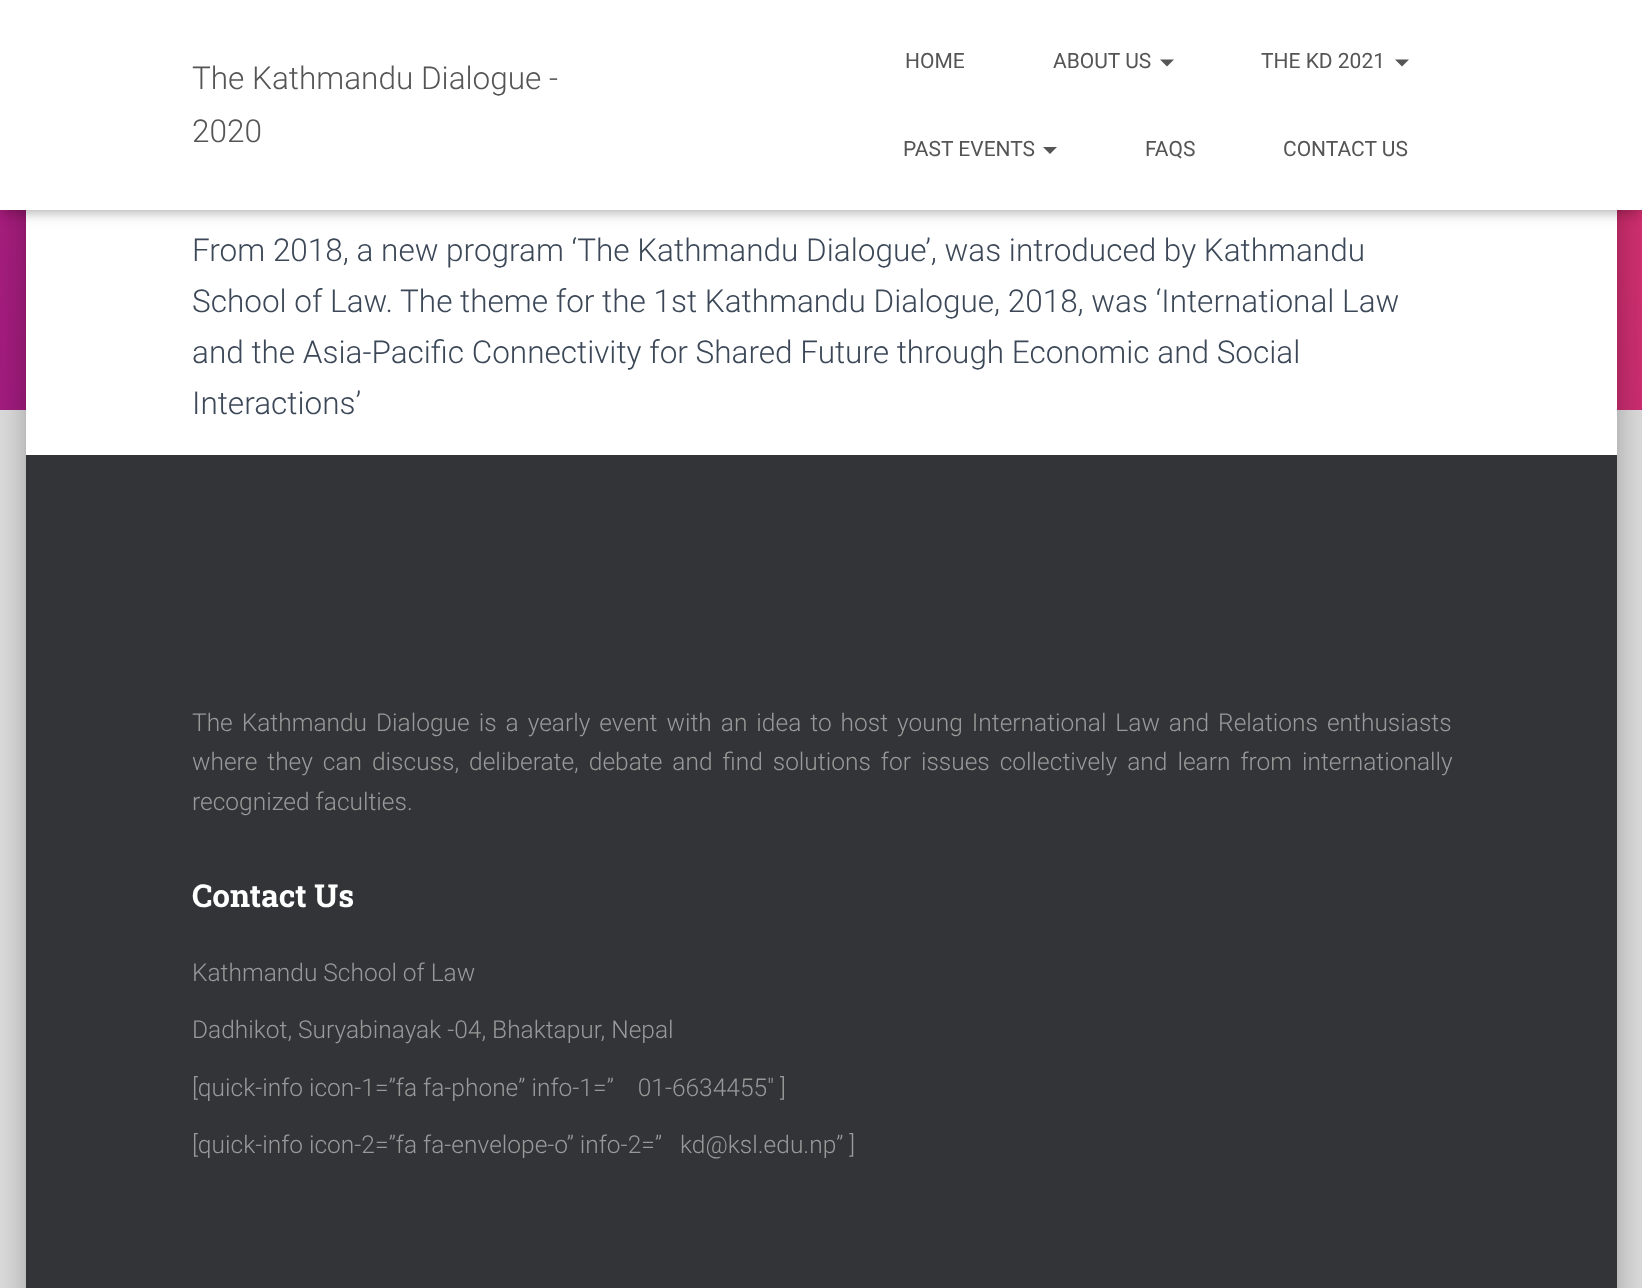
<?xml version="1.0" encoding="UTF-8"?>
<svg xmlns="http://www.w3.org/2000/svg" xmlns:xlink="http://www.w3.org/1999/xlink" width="1642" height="1288">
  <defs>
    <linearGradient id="g1" gradientUnits="userSpaceOnUse" x1="207" y1="616" x2="1436" y2="-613"><stop offset="0" stop-color="#a81d84" /><stop offset="1" stop-color="#ea396f" /></linearGradient>
  </defs>
  <rect width="100%" height="100%" fill="#e5e5e5" />
  <rect y="210" width="1642" height="200" fill="url(#g1)" />
  <rect x="35" y="124" width="1573" height="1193" rx="2" fill="#000000" fill-opacity="0.2" filter="blur(9px)" />
  <rect x="18" y="103" width="1608" height="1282" rx="19" fill="#000000" fill-opacity="0.12" filter="blur(26px)" />
  <rect x="23" y="126" width="1598" height="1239" rx="14" fill="#000000" fill-opacity="0.14" filter="blur(21px)" />
  <rect x="26" y="210" width="1591" height="245" fill="#ffffff" />
  <rect x="4" y="11" width="1636" height="203" fill="#000000" fill-opacity="0.1" filter="blur(4.5px)" />
  <rect y="2" width="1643" height="210" fill="#000000" fill-opacity="0.12" filter="blur(9px)" />
  <rect x="11" y="12" width="1622" height="189" fill="#000000" fill-opacity="0.42" filter="blur(9px)" />
  <rect width="1642" height="210" fill="#ffffff" />
  <path d="M 1160 59.5 h 14 l -7 7 z" fill="#555555" />
  <path d="M 1395 59.5 h 14 l -7 7 z" fill="#555555" />
  <path d="M 1043 147 h 14 l -7 7 z" fill="#555555" />
  <rect x="26" y="455" width="1591" height="833" fill="#323437" />
  <text x="192" y="89" style="font-family: Roboto; font-size: 31.5px; font-weight: 300; fill: #555555">The Kathmandu Dialogue -</text>
  <text x="192" y="142" style="font-family: Roboto; font-size: 31.5px; font-weight: 300; fill: #555555">2020</text>
  <text x="905" y="68" style="font-family: Roboto; font-size: 21px; fill: #555555">HOME</text>
  <text x="1053" y="68" style="font-family: Roboto; font-size: 21px; fill: #555555">ABOUT US</text>
  <text x="1261" y="68" style="font-family: Roboto; font-size: 21px; fill: #555555">THE KD 2021</text>
  <text x="903" y="156" style="font-family: Roboto; font-size: 21px; fill: #555555">PAST EVENTS</text>
  <text x="1145" y="156" style="font-family: Roboto; font-size: 21px; fill: #555555">FAQS</text>
  <text x="1283" y="156" style="font-family: Roboto; font-size: 21px; fill: #555555">CONTACT US</text>
  <text x="192" y="261" style="font-family: Roboto; font-size: 31.5px; font-weight: 300; fill: #3c4858">From 2018, a new program ‘The Kathmandu Dialogue’, was introduced by Kathmandu</text>
  <text x="192" y="312" style="font-family: Roboto; font-size: 31.5px; font-weight: 300; fill: #3c4858">School of Law. The theme for the 1st Kathmandu Dialogue, 2018, was ‘International Law</text>
  <text x="192" y="363" style="font-family: Roboto; font-size: 31.5px; font-weight: 300; fill: #3c4858">and the Asia-Pacific Connectivity for Shared Future through Economic and Social</text>
  <text x="192" y="414" style="font-family: Roboto; font-size: 31.5px; font-weight: 300; fill: #3c4858">Interactions’</text>
  <text x="192" y="731" word-spacing="3" style="font-family: Roboto; font-size: 24.5px; font-weight: 300; fill: #999999">The Kathmandu Dialogue is a yearly event with an idea to host young International Law and Relations enthusiasts</text>
  <text x="192" y="770" word-spacing="4" style="font-family: Roboto; font-size: 24.5px; font-weight: 300; fill: #999999">where they can discuss, deliberate, debate and find solutions for issues collectively and learn from internationally</text>
  <text x="192" y="810" style="font-family: Roboto; font-size: 24.5px; font-weight: 300; fill: #999999">recognized faculties.</text>
  <text x="192" y="907" style="font-family: Roboto Slab; font-size: 31.5px; font-weight: bold; fill: #ffffff">Contact Us</text>
  <text x="192" y="981" style="font-family: Roboto; font-size: 24.5px; font-weight: 300; fill: #999999">Kathmandu School of Law</text>
  <text x="192" y="1038" style="font-family: Roboto; font-size: 24.5px; font-weight: 300; fill: #999999">Dadhikot, Suryabinayak -04, Bhaktapur, Nepal</text>
  <text x="192" y="1096" style="font-family: Roboto; font-size: 24.5px; font-weight: 300; fill: #999999" xml:space="preserve">[quick-info icon-1=”fa fa-phone” info-1=”    01-6634455″ ]</text>
  <text x="192" y="1153" style="font-family: Roboto; font-size: 24.5px; font-weight: 300; fill: #999999" xml:space="preserve">[quick-info icon-2=”fa fa-envelope-o” info-2=”   kd@ksl.edu.np” ]</text>
</svg>
